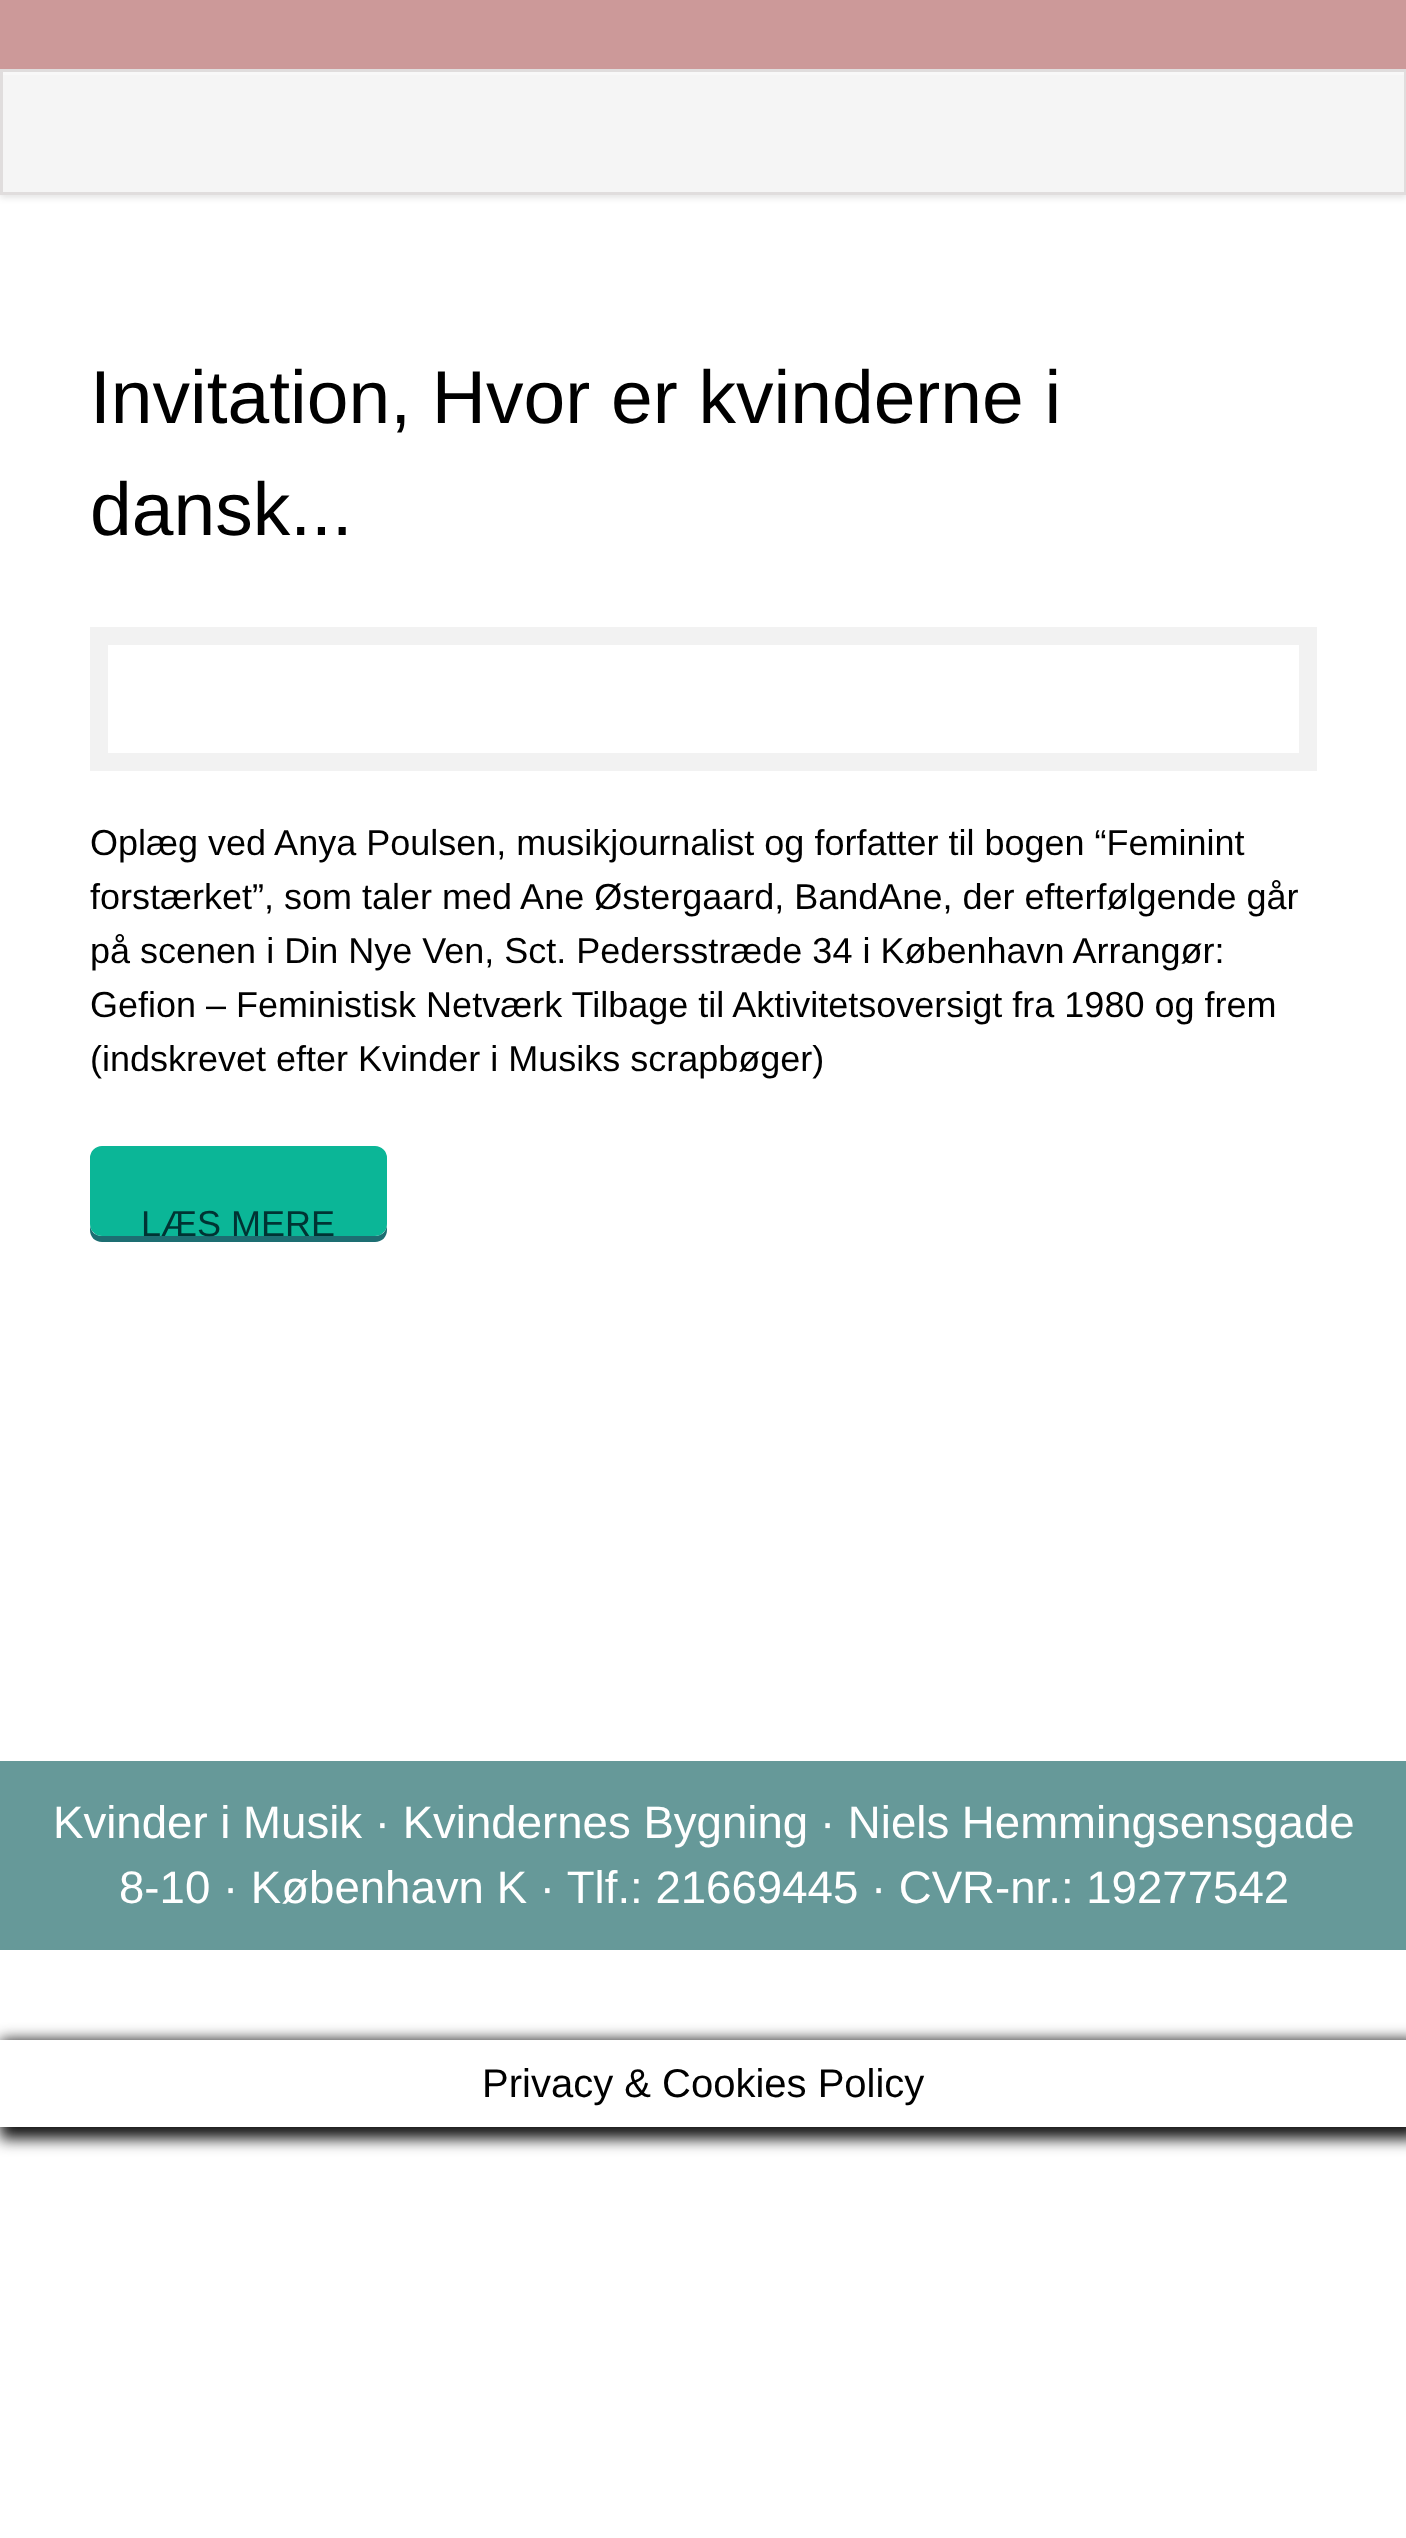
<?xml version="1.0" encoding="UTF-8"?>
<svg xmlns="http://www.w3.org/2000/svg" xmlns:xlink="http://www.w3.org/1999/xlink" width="1406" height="2538">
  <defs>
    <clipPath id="clip1"><path d="M 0 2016 h 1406 v 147 h -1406 z m 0 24 h 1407 v 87 h -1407 z" clip-rule="evenodd" /></clipPath>
  </defs>
  <rect width="100%" height="100%" fill="#ffffff" />
  <rect y="72" width="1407" height="126" fill="#000000" fill-opacity="0.1" filter="blur(3px)" />
  <rect width="1406" height="69" fill="#cc9999" />
  <rect x="3" y="75" width="1401" height="117" fill="#f5f5f5" />
  <rect x="3" y="72" width="1401" height="3" fill="#f8f8f8" />
  <rect x="1.5" y="70.5" width="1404" height="123" fill="none" stroke="#e0dddd" stroke-width="3" />
  <rect x="99" y="636" width="1209" height="126" fill="none" stroke="#f2f2f2" stroke-width="18" />
  <path d="M 90 1224 v 6 c 0 7 5 12 12 12 h 273 c 7 0 12 -5 12 -12 v -6 c 0 7 -5 12 -12 12 h -273 c -7 0 -12 -5 -12 -12 z" fill="#1d6e72" />
  <rect x="91.5" y="1147.5" width="294" height="87" rx="10.5" fill="#0bb697" stroke="#0bb697" stroke-width="3" />
  <rect y="1761" width="1406" height="189" fill="#669999" />
  <g clip-path="url(#clip1)">
    <rect y="2040" width="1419" height="99" fill="#161616" filter="blur(7.5px)" />
  </g>
  <text x="90" y="423" style="font-family: Liberation Sans; font-size: 75px; fill: #000000">Invitation, Hvor er kvinderne i</text>
  <text x="90" y="535" style="font-family: Liberation Sans; font-size: 75px; fill: #000000">dansk...</text>
  <text x="90" y="855" style="font-family: Liberation Sans; font-size: 36px; fill: #000000">Oplæg ved Anya Poulsen, musikjournalist og forfatter til bogen “Feminint</text>
  <text x="90" y="909" style="font-family: Liberation Sans; font-size: 36px; fill: #000000">forstærket”, som taler med Ane Østergaard, BandAne, der efterfølgende går</text>
  <text x="90" y="963" style="font-family: Liberation Sans; font-size: 36px; fill: #000000">på scenen i Din Nye Ven, Sct. Pedersstræde 34 i København Arrangør:</text>
  <text x="90" y="1017" style="font-family: Liberation Sans; font-size: 36px; fill: #000000">Gefion – Feministisk Netværk Tilbage til Aktivitetsoversigt fra 1980 og frem</text>
  <text x="90" y="1071" style="font-family: Liberation Sans; font-size: 36px; fill: #000000">(indskrevet efter Kvinder i Musiks scrapbøger)</text>
  <text x="141" y="1236" style="font-family: Liberation Sans; font-size: 36px; fill: #003333">LÆS MERE</text>
  <text x="53" y="1838" style="font-family: Liberation Sans; font-size: 45.6px; fill: #ffffff">Kvinder i Musik · Kvindernes Bygning</text>
  <text x="820" y="1838" style="font-family: Liberation Sans; font-size: 45.6px; fill: #ffffff">· Niels Hemmingsensgade</text>
  <text x="119" y="1903" style="font-family: Liberation Sans; font-size: 45.6px; fill: #ffffff">8-10 · København K · Tlf.: 21669445 · CVR-nr.: 19277542</text>
  <text x="482" y="2097" style="font-family: Liberation Sans; font-size: 40px; fill: #000000">Privacy &amp; Cookies Policy</text>
</svg>
